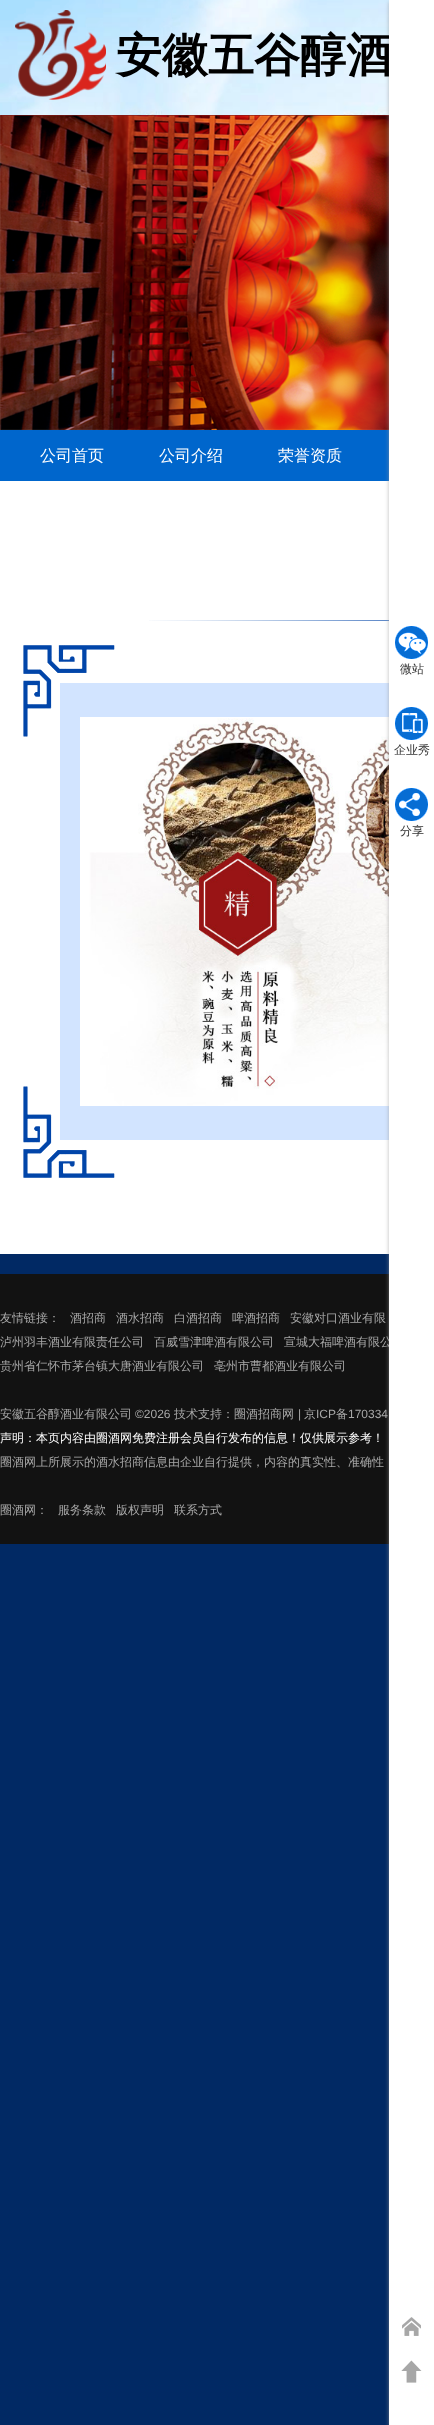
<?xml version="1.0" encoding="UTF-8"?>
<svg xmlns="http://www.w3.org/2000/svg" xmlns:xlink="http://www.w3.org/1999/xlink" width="434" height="2425">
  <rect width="100%" height="100%" fill="#012964" />
  <image x="0" y="0" width="389" height="115" xlink:href="image1.png" />
  <image x="15" y="10" width="91" height="90" xlink:href="image2.png" />
  <image x="0" y="115" width="389" height="315" xlink:href="image3.png" />
  <rect y="430" width="389" height="51" fill="#0066cc" />
  <rect y="481" width="389" height="164" fill="#ffffff" />
  <image x="149" y="620" width="240" height="1" xlink:href="image4.png" />
  <rect y="645" width="389" height="609" fill="#ffffff" />
  <image x="23" y="645" width="92" height="92" xlink:href="image5.png" />
  <image x="23" y="1086" width="92" height="92" xlink:href="image6.png" />
  <rect x="60" y="683" width="329" height="457" fill="#d2e4ff" />
  <image x="80" y="717" width="309" height="389" xlink:href="image7.png" />
  <rect y="1274" width="389" height="270" fill="#121212" />
  <rect x="390" y="2" width="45" height="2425" fill="#999999" filter="blur(2.5px)" />
  <text x="116" y="71" style="font-family: WenQuanYi Zen Hei; font-size: 46px; font-weight: bold; fill: #000000">安徽五谷醇酒</text>
  <text x="40" y="461" style="font-family: WenQuanYi Zen Hei; font-size: 16px; font-weight: 500; fill: #ffffff">公司首页</text>
  <text x="159" y="461" style="font-family: WenQuanYi Zen Hei; font-size: 16px; font-weight: 500; fill: #ffffff">公司介绍</text>
  <text x="278" y="461" style="font-family: WenQuanYi Zen Hei; font-size: 16px; font-weight: 500; fill: #ffffff">荣誉资质</text>
  <text x="0" y="1322" style="font-family: WenQuanYi Zen Hei; font-size: 12px; font-weight: 500; fill: #a8a8a8">友情链接：</text>
  <text x="70" y="1322" style="font-family: WenQuanYi Zen Hei; font-size: 12px; font-weight: 500; fill: #a8a8a8">酒招商</text>
  <text x="116" y="1322" style="font-family: WenQuanYi Zen Hei; font-size: 12px; font-weight: 500; fill: #a8a8a8">酒水招商</text>
  <text x="174" y="1322" style="font-family: WenQuanYi Zen Hei; font-size: 12px; font-weight: 500; fill: #a8a8a8">白酒招商</text>
  <text x="232" y="1322" style="font-family: WenQuanYi Zen Hei; font-size: 12px; font-weight: 500; fill: #a8a8a8">啤酒招商</text>
  <text x="290" y="1322" style="font-family: WenQuanYi Zen Hei; font-size: 12px; font-weight: 500; fill: #a8a8a8">安徽对口酒业有限</text>
  <text x="0" y="1346" style="font-family: WenQuanYi Zen Hei; font-size: 12px; font-weight: 500; fill: #a8a8a8">泸州羽丰酒业有限责任公司</text>
  <text x="154" y="1346" style="font-family: WenQuanYi Zen Hei; font-size: 12px; font-weight: 500; fill: #a8a8a8">百威雪津啤酒有限公司</text>
  <text x="284" y="1346" style="font-family: WenQuanYi Zen Hei; font-size: 12px; font-weight: 500; fill: #a8a8a8">宣城大福啤酒有限公</text>
  <rect x="389" width="45" height="2425" fill="#ffffff" />
  <image x="401" y="2360" width="21" height="23" xlink:href="image12.png" />
  <image x="402" y="2317" width="19" height="19" xlink:href="image11.png" />
  <text x="400" y="835" style="font-family: WenQuanYi Zen Hei; font-size: 12px; font-weight: 500; fill: #333333">分享</text>
  <image x="395" y="788" width="33" height="33" xlink:href="image10.png" />
  <text x="394" y="754" style="font-family: WenQuanYi Zen Hei; font-size: 12px; font-weight: 500; fill: #333333">企业秀</text>
  <image x="395" y="707" width="33" height="33" xlink:href="image9.png" />
  <text x="400" y="673" style="font-family: WenQuanYi Zen Hei; font-size: 12px; font-weight: 500; fill: #333333">微站</text>
  <image x="395" y="626" width="33" height="33" xlink:href="image8.png" />
  <text x="0" y="1370" style="font-family: WenQuanYi Zen Hei; font-size: 12px; font-weight: 500; fill: #a8a8a8">贵州省仁怀市茅台镇大唐酒业有限公司</text>
  <text x="214" y="1370" style="font-family: WenQuanYi Zen Hei; font-size: 12px; font-weight: 500; fill: #a8a8a8">亳州市曹都酒业有限公司</text>
  <text x="0" y="1418" style="font-family: WenQuanYi Zen Hei; font-size: 12px; font-weight: 500; fill: #a8a8a8">安徽五谷醇酒业有限公司</text>
  <text x="135" y="1418" style="font-family: Liberation Sans; font-size: 12px; fill: #a8a8a8">©2026</text>
  <text x="174" y="1418" style="font-family: WenQuanYi Zen Hei; font-size: 12px; font-weight: 500; fill: #a8a8a8">技术支持：圈酒招商网</text>
  <text x="298" y="1418" style="font-family: Liberation Sans; font-size: 12px; fill: #a8a8a8">|</text>
  <text x="304" y="1418" style="font-family: WenQuanYi Zen Hei; font-size: 12px; font-weight: 500; fill: #a8a8a8">京</text>
  <text x="316" y="1418" style="font-family: Liberation Sans; font-size: 12px; fill: #a8a8a8">ICP</text>
  <text x="336" y="1418" style="font-family: WenQuanYi Zen Hei; font-size: 12px; font-weight: 500; fill: #a8a8a8">备</text>
  <text x="348" y="1418" style="font-family: Liberation Sans; font-size: 12px; fill: #a8a8a8">170334</text>
  <text x="0" y="1442" style="font-family: WenQuanYi Zen Hei; font-size: 12px; font-weight: 500; fill: #ffffff">声明：本页内容由圈酒网免费注册会员自行发布的信息！仅供展示参考！</text>
  <text x="0" y="1466" style="font-family: WenQuanYi Zen Hei; font-size: 12px; font-weight: 500; fill: #a8a8a8">圈酒网上所展示的酒水招商信息由企业自行提供，内容的真实性、准确性</text>
  <text x="0" y="1514" style="font-family: WenQuanYi Zen Hei; font-size: 12px; font-weight: 500; fill: #a8a8a8">圈酒网：</text>
  <text x="58" y="1514" style="font-family: WenQuanYi Zen Hei; font-size: 12px; font-weight: 500; fill: #a8a8a8">服务条款</text>
  <text x="116" y="1514" style="font-family: WenQuanYi Zen Hei; font-size: 12px; font-weight: 500; fill: #a8a8a8">版权声明</text>
  <text x="174" y="1514" style="font-family: WenQuanYi Zen Hei; font-size: 12px; font-weight: 500; fill: #a8a8a8">联系方式</text>
</svg>
